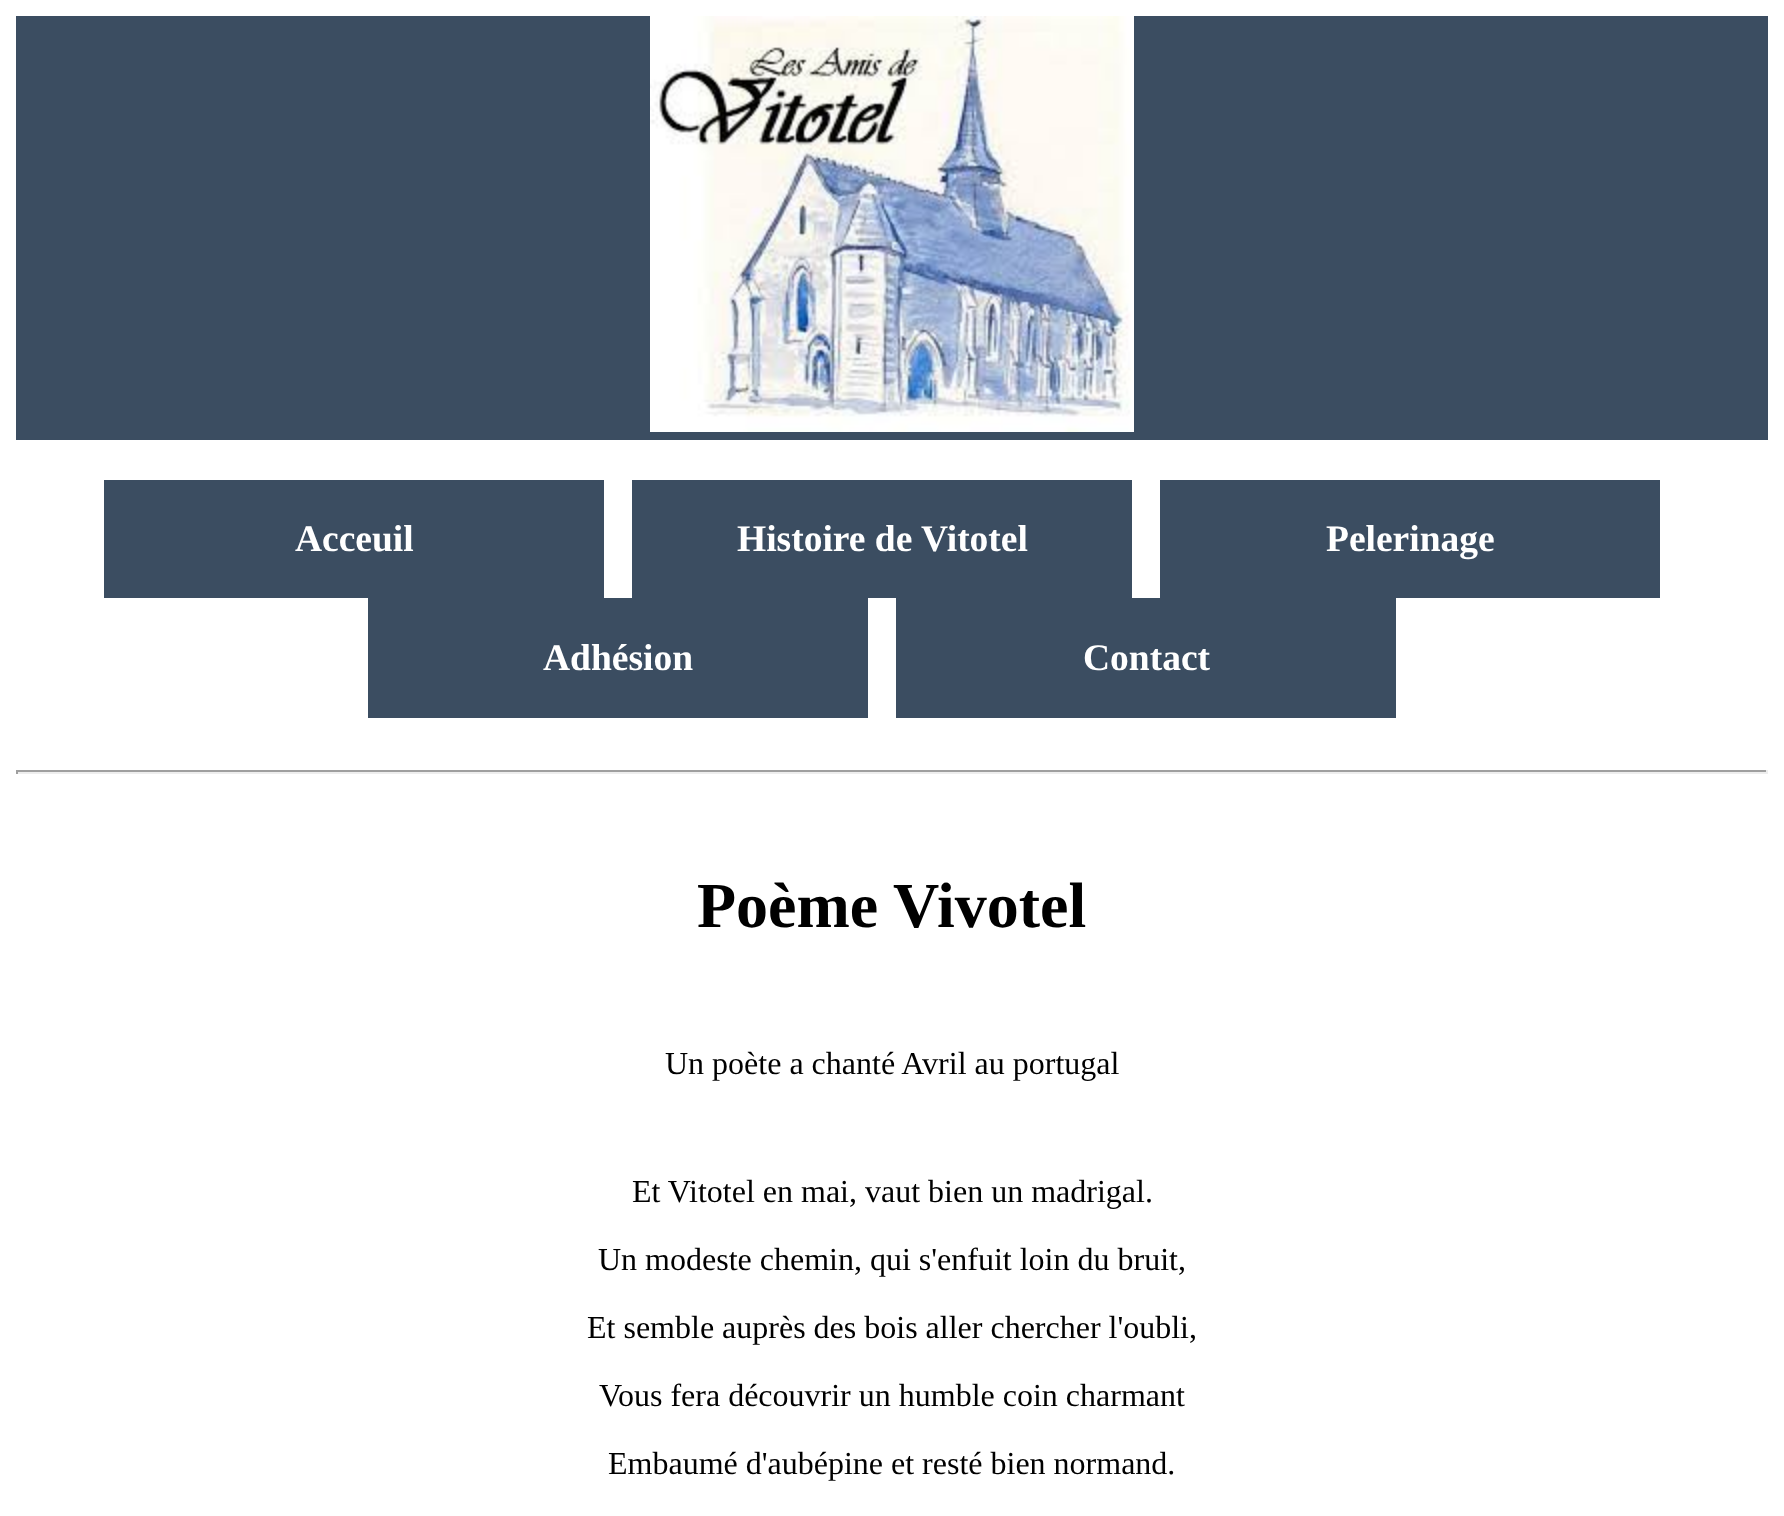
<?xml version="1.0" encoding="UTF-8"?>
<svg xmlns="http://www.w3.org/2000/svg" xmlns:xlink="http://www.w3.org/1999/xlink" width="1784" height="1516">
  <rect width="100%" height="100%" fill="#ffffff" />
  <rect x="16" y="16" width="1752" height="424" fill="#3b4d61" />
  <image x="650" y="16" width="484" height="416" xlink:href="image1.png" />
  <rect x="104" y="480" width="500" height="118" fill="#3b4d61" />
  <rect x="632" y="480" width="500" height="118" fill="#3b4d61" />
  <rect x="1160" y="480" width="500" height="118" fill="#3b4d61" />
  <rect x="368" y="598" width="500" height="120" fill="#3b4d61" />
  <rect x="896" y="598" width="500" height="120" fill="#3b4d61" />
  <rect x="16" y="770" width="1752" height="2" fill="#9f9f9f" />
  <rect x="1766" y="770" width="2" height="4" fill="#eeeeee" />
  <rect x="16" y="772" width="1752" height="2" fill="#eeeeee" />
  <rect x="16" y="770" width="2" height="4" fill="#9f9f9f" />
  <text x="295" y="551" style="font-family: Liberation Serif; font-size: 37.5px; font-weight: bold; fill: #ffffff">Acceuil</text>
  <text x="737" y="551" style="font-family: Liberation Serif; font-size: 37.5px; font-weight: bold; fill: #ffffff">Histoire de Vitotel</text>
  <text x="1326" y="551" style="font-family: Liberation Serif; font-size: 37.5px; font-weight: bold; fill: #ffffff">Pelerinage</text>
  <text x="543" y="670" style="font-family: Liberation Serif; font-size: 37.5px; font-weight: bold; fill: #ffffff">Adhésion</text>
  <text x="1083" y="670" style="font-family: Liberation Serif; font-size: 37.5px; font-weight: bold; fill: #ffffff">Contact</text>
  <text x="697" y="927" style="font-family: Liberation Serif; font-size: 64px; font-weight: bold; fill: #000000">Poème Vivotel</text>
  <text x="665" y="1074" style="font-family: Liberation Serif; font-size: 32px; fill: #000000">Un poète a chanté Avril au portugal</text>
  <text x="632" y="1202" style="font-family: Liberation Serif; font-size: 32px; fill: #000000">Et Vitotel en mai, vaut bien un madrigal.</text>
  <text x="598" y="1270" style="font-family: Liberation Serif; font-size: 32px; fill: #000000">Un modeste chemin, qui s'enfuit loin du bruit,</text>
  <text x="587" y="1338" style="font-family: Liberation Serif; font-size: 32px; fill: #000000">Et semble auprès des bois aller chercher l'oubli,</text>
  <text x="599" y="1406" style="font-family: Liberation Serif; font-size: 32px; fill: #000000">Vous fera découvrir un humble coin charmant</text>
  <text x="608" y="1474" style="font-family: Liberation Serif; font-size: 32px; fill: #000000">Embaumé d'aubépine et resté bien normand.</text>
</svg>
